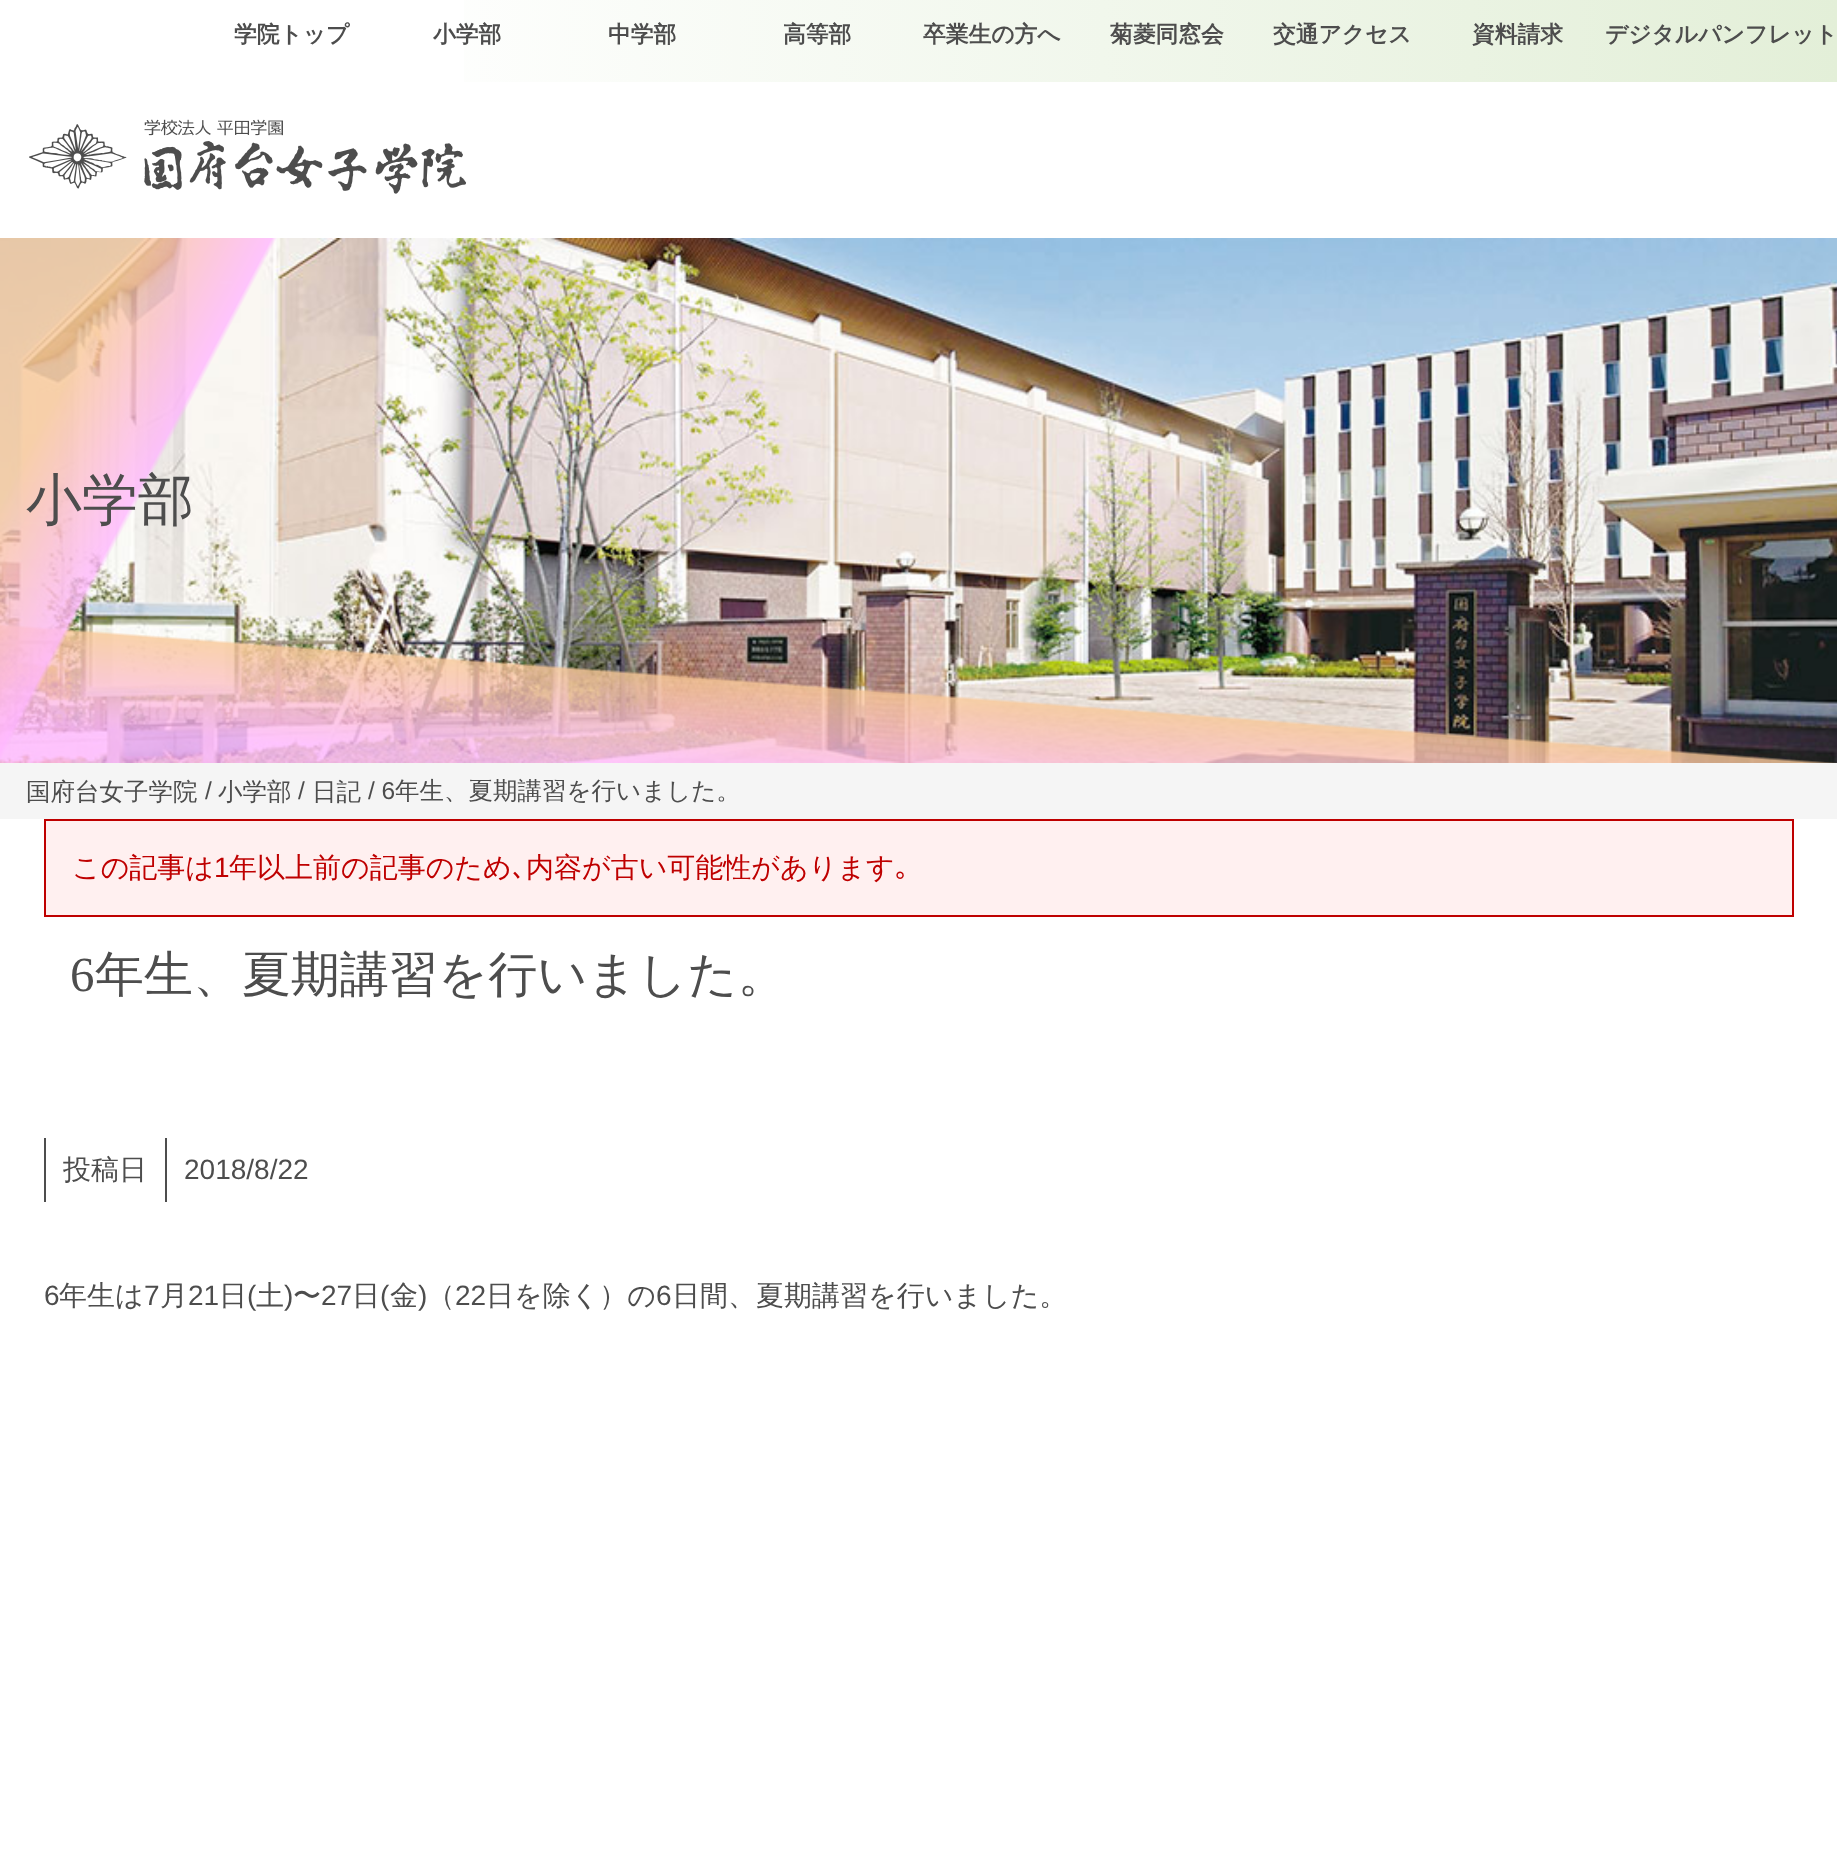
<?xml version="1.0" encoding="UTF-8"?>
<svg xmlns="http://www.w3.org/2000/svg" xmlns:xlink="http://www.w3.org/1999/xlink" width="1837" height="1865">
  <defs>
    <linearGradient id="g1" gradientUnits="userSpaceOnUse" x1="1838" y1="41" x2="0" y2="41"><stop offset="0" stop-color="#e3efd8" /><stop offset="0.4" stop-color="#f1f7ec" /><stop offset="0.8" stop-color="#ffffff" /></linearGradient>
  </defs>
  <rect width="100%" height="100%" fill="#ffffff" />
  <rect x="464" width="1373" height="82" fill="url(#g1)" />
  <image x="29" y="119" width="438" height="75" xlink:href="image1.png" />
  <image x="0" y="238" width="1837" height="525" xlink:href="image2.png" />
  <rect y="763" width="1837" height="56" fill="#f5f5f5" />
  <rect x="45" y="820" width="1748" height="96" fill="#fff0f0" stroke="#bf0000" stroke-width="2" />
  <rect x="165" y="1138" width="2" height="64" fill="#4d4d4d" />
  <rect x="44" y="1138" width="2" height="64" fill="#4d4d4d" />
  <text x="234" y="42" style="font-family: WenQuanYi Zen Hei; font-size: 22.75px; font-weight: bold; fill: #4d4d4d">学院トップ</text>
  <text x="433" y="42" style="font-family: WenQuanYi Zen Hei; font-size: 22.75px; font-weight: bold; fill: #4d4d4d">小学部</text>
  <text x="608" y="42" style="font-family: WenQuanYi Zen Hei; font-size: 22.75px; font-weight: bold; fill: #4d4d4d">中学部</text>
  <text x="783" y="42" style="font-family: WenQuanYi Zen Hei; font-size: 22.75px; font-weight: bold; fill: #4d4d4d">高等部</text>
  <text x="923" y="42" style="font-family: WenQuanYi Zen Hei; font-size: 22.75px; font-weight: bold; fill: #4d4d4d">卒業生の方へ</text>
  <text x="1110" y="42" style="font-family: WenQuanYi Zen Hei; font-size: 22.75px; font-weight: bold; fill: #4d4d4d">菊菱同窓会</text>
  <text x="1273" y="42" style="font-family: WenQuanYi Zen Hei; font-size: 22.75px; font-weight: bold; fill: #4d4d4d">交通アクセス</text>
  <text x="1472" y="42" style="font-family: WenQuanYi Zen Hei; font-size: 22.75px; font-weight: bold; fill: #4d4d4d">資料請求</text>
  <text x="1605" y="42" style="font-family: WenQuanYi Zen Hei; font-size: 22.75px; font-weight: bold; fill: #4d4d4d">デジタルパンフレット</text>
  <text x="26" y="519" style="font-family: WenQuanYi Zen Hei; font-size: 56px; font-weight: 500; fill: #4d4d4d">小学部</text>
  <text x="26" y="800" style="font-family: WenQuanYi Zen Hei; font-size: 24.5px; font-weight: 500; fill: #4d4d4d">国府台女子学院</text>
  <text x="205" y="799" style="font-family: Liberation Sans; font-size: 24.5px; fill: #4d4d4d">/</text>
  <text x="218" y="800" style="font-family: WenQuanYi Zen Hei; font-size: 24.5px; font-weight: 500; fill: #4d4d4d">小学部</text>
  <text x="298" y="799" style="font-family: Liberation Sans; font-size: 24.5px; fill: #4d4d4d">/</text>
  <text x="312" y="800" style="font-family: WenQuanYi Zen Hei; font-size: 24.5px; font-weight: 500; fill: #4d4d4d">日記</text>
  <text x="368" y="799" style="font-family: Liberation Sans; font-size: 24.5px; fill: #4d4d4d">/ 6</text>
  <text x="395" y="799" style="font-family: WenQuanYi Zen Hei; font-size: 24.5px; font-weight: 500; fill: #4d4d4d">年生、夏期講習を行いました。</text>
  <text x="72" y="877" style="font-family: WenQuanYi Zen Hei; font-size: 28px; font-weight: 500; fill: #bf0000">この記事は</text>
  <text x="214" y="877" style="font-family: Liberation Sans; font-size: 28px; fill: #bf0000">1</text>
  <text x="229" y="877" style="font-family: WenQuanYi Zen Hei; font-size: 28px; font-weight: 500; fill: #bf0000">年以上前の記事のため</text>
  <text x="512" y="877" style="font-family: IPAPGothic; font-size: 28px; fill: #bf0000">､</text>
  <text x="526" y="877" style="font-family: WenQuanYi Zen Hei; font-size: 28px; font-weight: 500; fill: #bf0000">内容が古い可能性があります</text>
  <text x="895" y="877" style="font-family: IPAPGothic; font-size: 28px; fill: #bf0000">｡</text>
  <text x="70" y="991" style="font-family: Liberation Serif; font-size: 49px; fill: #4d4d4d">6</text>
  <text x="95" y="991" style="font-family: WenQuanYi Zen Hei; font-size: 49px; font-weight: 500; fill: #4d4d4d">年生、夏期講習を行いました。</text>
  <text x="63" y="1179" style="font-family: WenQuanYi Zen Hei; font-size: 28px; font-weight: 500; fill: #4d4d4d">投稿日</text>
  <text x="184" y="1179" style="font-family: Liberation Sans; font-size: 28px; fill: #4d4d4d">2018/8/22</text>
  <text x="44" y="1305" style="font-family: Liberation Sans; font-size: 28px; fill: #4d4d4d">6</text>
  <text x="59" y="1305" style="font-family: WenQuanYi Zen Hei; font-size: 28px; font-weight: 500; fill: #4d4d4d">年生は</text>
  <text x="144" y="1305" style="font-family: Liberation Sans; font-size: 28px; fill: #4d4d4d">7</text>
  <text x="160" y="1305" style="font-family: WenQuanYi Zen Hei; font-size: 28px; font-weight: 500; fill: #4d4d4d">月</text>
  <text x="188" y="1305" style="font-family: Liberation Sans; font-size: 28px; fill: #4d4d4d">21</text>
  <text x="219" y="1305" style="font-family: WenQuanYi Zen Hei; font-size: 28px; font-weight: 500; fill: #4d4d4d">日</text>
  <text x="247" y="1305" style="font-family: Liberation Sans; font-size: 28px; fill: #4d4d4d">(</text>
  <text x="256" y="1305" style="font-family: WenQuanYi Zen Hei; font-size: 28px; font-weight: 500; fill: #4d4d4d">土</text>
  <text x="284" y="1305" style="font-family: Liberation Sans; font-size: 28px; fill: #4d4d4d">)</text>
  <text x="293" y="1305" style="font-family: WenQuanYi Zen Hei; font-size: 28px; font-weight: 500; fill: #4d4d4d">〜</text>
  <text x="321" y="1305" style="font-family: Liberation Sans; font-size: 28px; fill: #4d4d4d">27</text>
  <text x="352" y="1305" style="font-family: WenQuanYi Zen Hei; font-size: 28px; font-weight: 500; fill: #4d4d4d">日</text>
  <text x="380" y="1305" style="font-family: Liberation Sans; font-size: 28px; fill: #4d4d4d">(</text>
  <text x="390" y="1305" style="font-family: WenQuanYi Zen Hei; font-size: 28px; font-weight: 500; fill: #4d4d4d">金</text>
  <text x="418" y="1305" style="font-family: Liberation Sans; font-size: 28px; fill: #4d4d4d">)</text>
  <text x="427" y="1305" style="font-family: WenQuanYi Zen Hei; font-size: 28px; font-weight: 500; fill: #4d4d4d">（</text>
  <text x="455" y="1305" style="font-family: Liberation Sans; font-size: 28px; fill: #4d4d4d">22</text>
  <text x="486" y="1305" style="font-family: WenQuanYi Zen Hei; font-size: 28px; font-weight: 500; fill: #4d4d4d">日を除く）の</text>
  <text x="656" y="1305" style="font-family: Liberation Sans; font-size: 28px; fill: #4d4d4d">6</text>
  <text x="672" y="1305" style="font-family: WenQuanYi Zen Hei; font-size: 28px; font-weight: 500; fill: #4d4d4d">日間、夏期講習を行いました。</text>
</svg>
